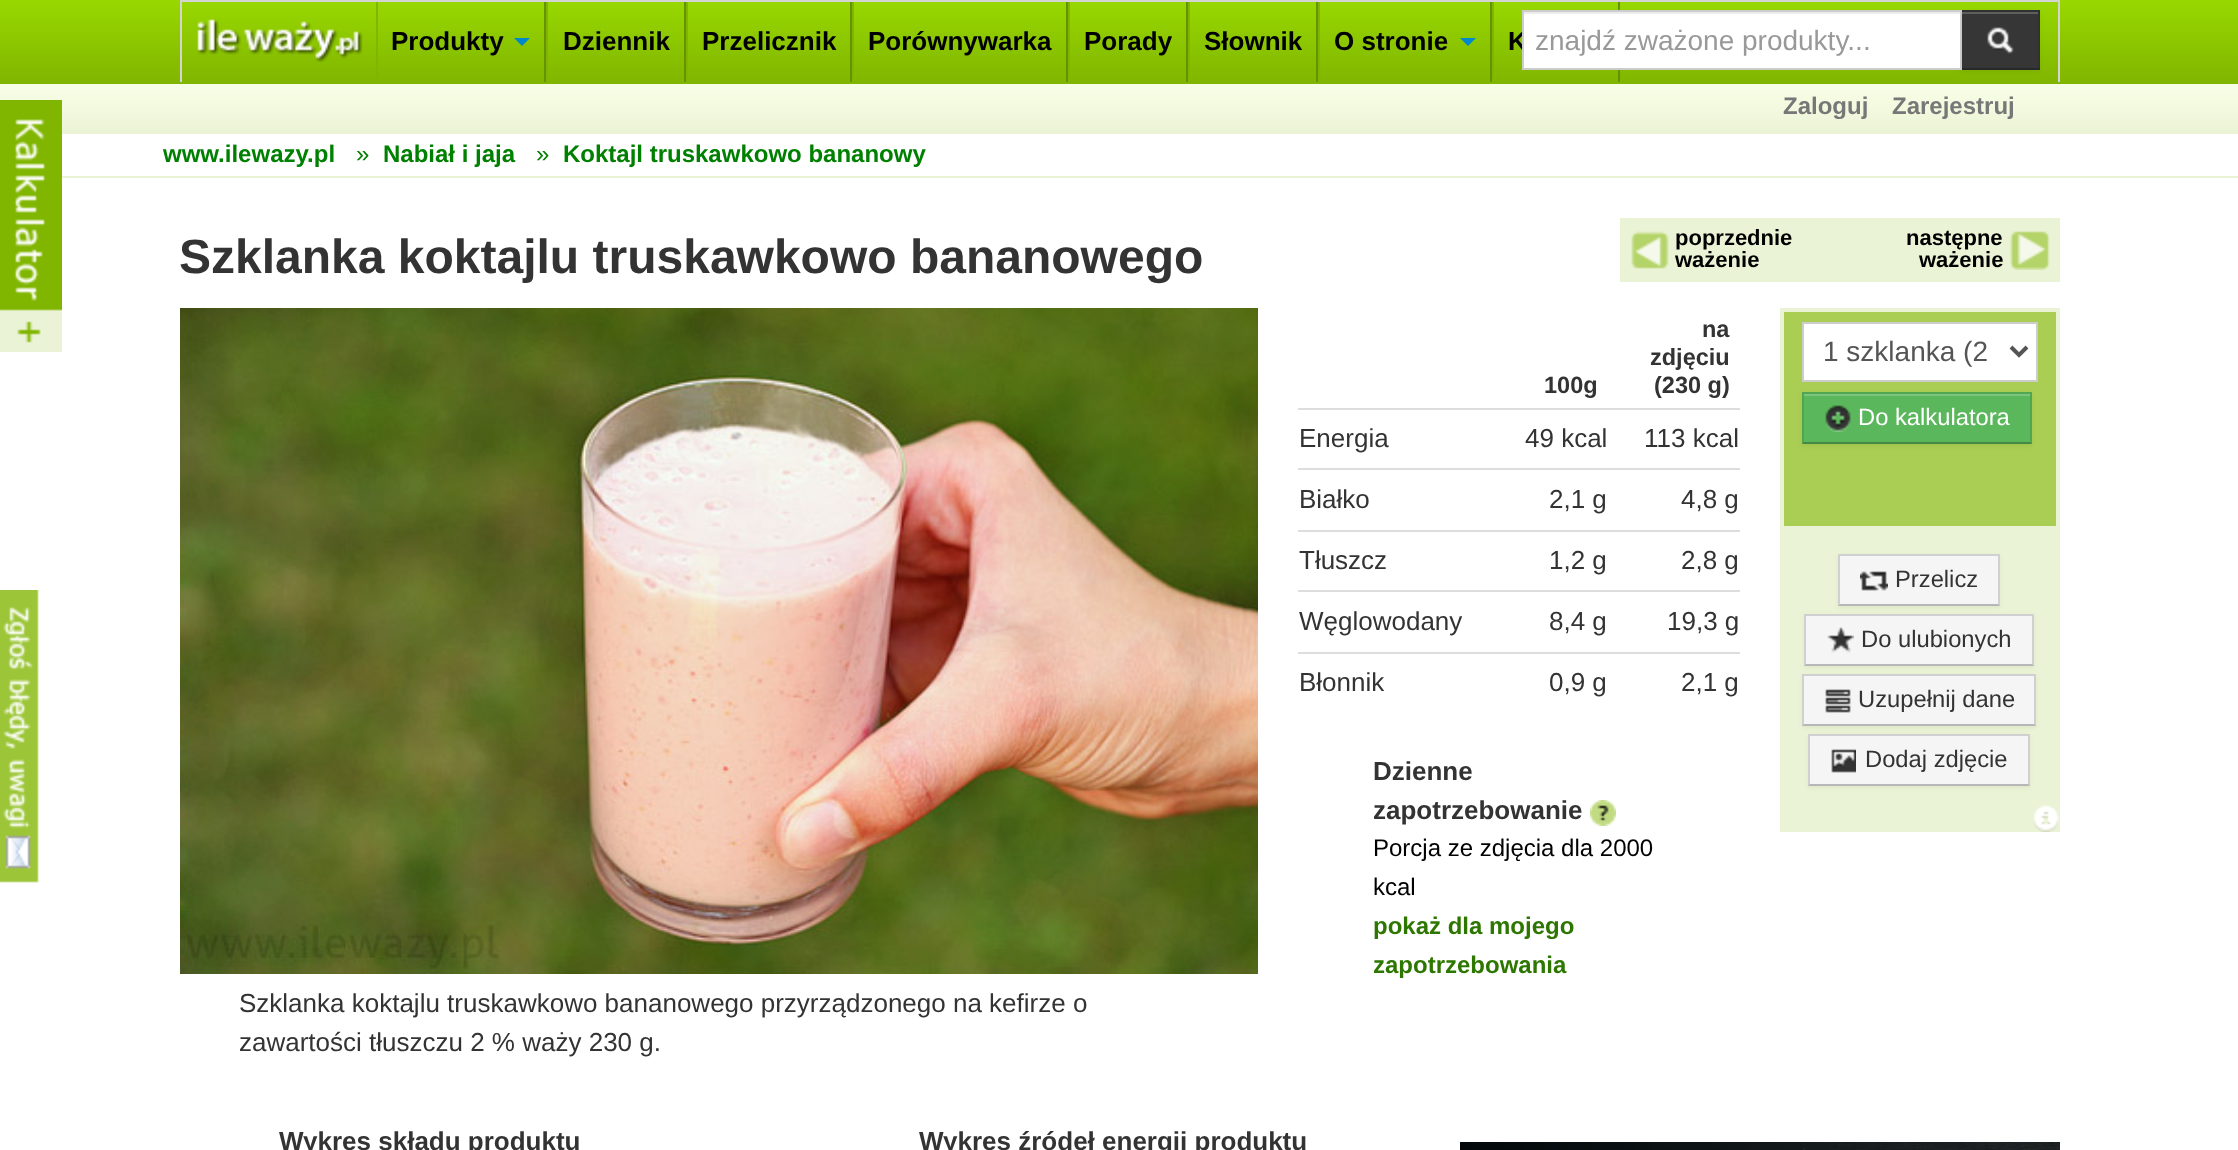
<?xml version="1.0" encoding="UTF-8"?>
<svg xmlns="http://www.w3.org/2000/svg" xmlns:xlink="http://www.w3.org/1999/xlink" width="2238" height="1150">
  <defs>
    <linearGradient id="g1" gradientUnits="userSpaceOnUse" x1="1099" y1="84" x2="1099" y2="134"><stop offset="0" stop-color="#f8ffe7" /><stop offset="1" stop-color="#ebf3d6" /></linearGradient>
    <linearGradient id="g2" gradientUnits="userSpaceOnUse" x1="1119" y1="0" x2="1119" y2="82"><stop offset="0" stop-color="#98d800" /><stop offset="1" stop-color="#81b600" /></linearGradient>
  </defs>
  <rect width="100%" height="100%" fill="#ffffff" />
  <rect y="84" width="2238" height="50" fill="url(#g1)" />
  <image x="0" y="100" width="62" height="252" xlink:href="image1.png" />
  <rect width="2238" height="82" fill="url(#g2)" />
  <rect y="82" width="2238" height="2" fill="#81b600" />
  <rect x="180" width="1880" height="2" fill="#d4d4d4" />
  <rect x="2058" width="2" height="82" fill="#d4d4d4" />
  <rect x="180" width="2" height="82" fill="#d4d4d4" />
  <image x="197" y="19" width="166" height="43" xlink:href="image2.png" />
  <rect x="544" y="2" width="2" height="80" fill="#669100" />
  <rect x="376" y="2" width="2" height="80" fill="#80b600" />
  <path d="M 514 38 h 16 l -8 8 z" fill="#0088cc" />
  <rect x="684" y="2" width="2" height="80" fill="#669100" />
  <rect x="546" y="2" width="2" height="80" fill="#80b600" />
  <rect x="850" y="2" width="2" height="80" fill="#669100" />
  <rect x="686" y="2" width="2" height="80" fill="#80b600" />
  <rect x="1066" y="2" width="2" height="80" fill="#669100" />
  <rect x="852" y="2" width="2" height="80" fill="#80b600" />
  <rect x="1186" y="2" width="2" height="80" fill="#669100" />
  <rect x="1068" y="2" width="2" height="80" fill="#80b600" />
  <rect x="1316" y="2" width="2" height="80" fill="#669100" />
  <rect x="1188" y="2" width="2" height="80" fill="#80b600" />
  <rect x="1490" y="2" width="2" height="80" fill="#669100" />
  <rect x="1318" y="2" width="2" height="80" fill="#80b600" />
  <path d="M 1460 38 h 16 l -8 8 z" fill="#0088cc" />
  <rect x="1618" y="2" width="2" height="80" fill="#669100" />
  <rect x="1492" y="2" width="2" height="80" fill="#80b600" />
  <rect x="1960" y="12" width="80" height="60" fill="#000000" fill-opacity="0.05" filter="blur(2px)" />
  <rect x="1524" y="12" width="436" height="2" fill="#ececec" />
  <rect x="1962" y="10" width="78" height="60" fill="#363636" />
  <rect x="1962" y="12" width="76" height="2" fill="#5e5e5e" />
  <path d="M 1960 10 h 80 l -2 2 h -76 z" fill="#313131" />
  <path d="M 2040 10 v 60 l -2 -2 v -56 z" fill="#313131" />
  <path d="M 2040 70 h -80 l 2 -2 h 76 z" fill="#000000" fill-opacity="0.25" />
  <image x="1987" y="27" width="27" height="27" xlink:href="image3.png" />
  <rect x="62" y="176" width="2176" height="2" fill="#ebf3d6" />
  <image x="0" y="590" width="39" height="293" xlink:href="image4.png" />
  <rect x="1620" y="218" width="440" height="64" fill="#ebf3d6" />
  <image x="1631" y="231" width="38" height="38" xlink:href="image5.png" />
  <image x="2010" y="231" width="40" height="39" xlink:href="image6.png" />
  <rect x="1298" y="408" width="442" height="2" fill="#dddddd" />
  <rect x="1298" y="468" width="442" height="2" fill="#dddddd" />
  <rect x="1298" y="530" width="442" height="2" fill="#dddddd" />
  <rect x="1298" y="590" width="442" height="2" fill="#dddddd" />
  <rect x="1298" y="652" width="442" height="2" fill="#dddddd" />
  <image x="1590" y="800" width="26" height="26" xlink:href="image7.png" />
  <rect x="1780" y="308" width="280" height="524" fill="#ebf3d6" />
  <rect x="1784" y="312" width="272" height="214" fill="#aace53" />
  <rect x="1803" y="323" width="234" height="58" fill="#ffffff" stroke="#cccccc" stroke-width="2" />
  <path d="M 2011 347 l 8 8 l 8 -8" fill="none" stroke="#555555" stroke-width="4" />
  <rect x="1802" y="394" width="230" height="52" fill="#000000" fill-opacity="0.05" filter="blur(2px)" />
  <rect x="1802" y="392" width="230" height="52" fill="#5bb75b" />
  <rect x="1804" y="394" width="226" height="2" fill="#7cc57c" />
  <path d="M 1802 392 h 230 l -2 2 h -226 z" fill="#52a552" />
  <path d="M 2032 392 v 52 l -2 -2 v -48 z" fill="#000000" fill-opacity="0.1" />
  <path d="M 2032 444 h -230 l 2 -2 h 226 z" fill="#000000" fill-opacity="0.25" />
  <path d="M 1802 444 v -52 l 2 2 v 48 z" fill="#000000" fill-opacity="0.1" />
  <image x="1825" y="405" width="26" height="27" xlink:href="image8.png" />
  <rect x="1838" y="556" width="162" height="52" fill="#000000" fill-opacity="0.05" filter="blur(2px)" />
  <rect x="1838" y="554" width="162" height="52" fill="#f5f5f5" />
  <path d="M 1838 554 h 162 l -2 2 h -158 z" fill="#d0d0d0" />
  <path d="M 2000 554 v 52 l -2 -2 v -48 z" fill="#000000" fill-opacity="0.15" />
  <path d="M 2000 606 h -162 l 2 -2 h 158 z" fill="#000000" fill-opacity="0.25" />
  <path d="M 1838 606 v -52 l 2 2 v 48 z" fill="#000000" fill-opacity="0.15" />
  <image x="1860" y="571" width="28" height="20" xlink:href="image9.png" />
  <rect x="1804" y="616" width="230" height="52" fill="#000000" fill-opacity="0.05" filter="blur(2px)" />
  <rect x="1804" y="614" width="230" height="52" fill="#f5f5f5" />
  <path d="M 1804 614 h 230 l -2 2 h -226 z" fill="#d0d0d0" />
  <path d="M 2034 614 v 52 l -2 -2 v -48 z" fill="#000000" fill-opacity="0.15" />
  <path d="M 2034 666 h -230 l 2 -2 h 226 z" fill="#000000" fill-opacity="0.25" />
  <path d="M 1804 666 v -52 l 2 2 v 48 z" fill="#000000" fill-opacity="0.15" />
  <image x="1827" y="627" width="27" height="26" xlink:href="image10.png" />
  <rect x="1802" y="676" width="234" height="52" fill="#000000" fill-opacity="0.05" filter="blur(2px)" />
  <rect x="1802" y="674" width="234" height="52" fill="#f5f5f5" />
  <path d="M 1802 674 h 234 l -2 2 h -230 z" fill="#d0d0d0" />
  <path d="M 2036 674 v 52 l -2 -2 v -48 z" fill="#000000" fill-opacity="0.15" />
  <path d="M 2036 726 h -234 l 2 -2 h 230 z" fill="#000000" fill-opacity="0.25" />
  <path d="M 1802 726 v -52 l 2 2 v 48 z" fill="#000000" fill-opacity="0.15" />
  <image x="1825" y="689" width="26" height="24" xlink:href="image11.png" />
  <rect x="1808" y="736" width="222" height="52" fill="#000000" fill-opacity="0.05" filter="blur(2px)" />
  <rect x="1808" y="734" width="222" height="52" fill="#f5f5f5" />
  <path d="M 1808 734 h 222 l -2 2 h -218 z" fill="#d0d0d0" />
  <path d="M 2030 734 v 52 l -2 -2 v -48 z" fill="#000000" fill-opacity="0.15" />
  <path d="M 2030 786 h -222 l 2 -2 h 218 z" fill="#000000" fill-opacity="0.25" />
  <path d="M 1808 786 v -52 l 2 2 v 48 z" fill="#000000" fill-opacity="0.15" />
  <image x="1831" y="749" width="25" height="24" xlink:href="image12.png" />
  <image x="2033" y="805" width="26" height="27" xlink:href="image13.png" />
  <image x="180" y="308" width="1078" height="666" xlink:href="image14.png" />
  <image x="1460" y="1142" width="600" height="8" xlink:href="image15.png" />
  <text x="391" y="50" style="font-family: Liberation Sans; font-size: 26px; font-weight: bold; fill: #000000">Produkty</text>
  <text x="563" y="50" style="font-family: Liberation Sans; font-size: 26px; font-weight: bold; fill: #000000">Dziennik</text>
  <text x="702" y="50" style="font-family: Liberation Sans; font-size: 26px; font-weight: bold; fill: #000000">Przelicznik</text>
  <text x="868" y="50" style="font-family: Liberation Sans; font-size: 26px; font-weight: bold; fill: #000000">Porównywarka</text>
  <text x="1084" y="50" style="font-family: Liberation Sans; font-size: 26px; font-weight: bold; fill: #000000">Porady</text>
  <text x="1204" y="50" style="font-family: Liberation Sans; font-size: 26px; font-weight: bold; fill: #000000">Słownik</text>
  <text x="1334" y="50" style="font-family: Liberation Sans; font-size: 26px; font-weight: bold; fill: #000000">O stronie</text>
  <text x="1508" y="50" style="font-family: Liberation Sans; font-size: 26px; font-weight: bold; fill: #000000">K</text>
  <rect x="1524" y="14" width="436" height="54" fill="#ffffff" />
  <rect x="1523" y="11" width="438" height="58" fill="none" stroke="#cccccc" stroke-width="2" />
  <text x="1535" y="50" style="font-family: Liberation Sans; font-size: 28px; fill: #999999">znajdź zważone produkty...</text>
  <text x="1783" y="114" style="font-family: Liberation Sans; font-size: 24px; font-weight: bold; fill: #777777">Zaloguj</text>
  <text x="1892" y="114" style="font-family: Liberation Sans; font-size: 24px; font-weight: bold; fill: #777777">Zarejestruj</text>
  <text x="163" y="162" style="font-family: Liberation Sans; font-size: 24px; font-weight: bold; fill: #008000">www.ilewazy.pl</text>
  <text x="356" y="162" style="font-family: Liberation Sans; font-size: 24px; fill: #008000">»</text>
  <text x="383" y="162" style="font-family: Liberation Sans; font-size: 24px; font-weight: bold; fill: #008000">Nabiał i jaja</text>
  <text x="536" y="162" style="font-family: Liberation Sans; font-size: 24px; fill: #008000">»</text>
  <text x="563" y="162" style="font-family: Liberation Sans; font-size: 24px; font-weight: bold; fill: #008000">Koktajl truskawkowo bananowy</text>
  <text x="179" y="273" style="font-family: Liberation Sans; font-size: 48px; font-weight: bold; fill: #333333">Szklanka koktajlu truskawkowo bananowego</text>
  <text x="1675" y="245" style="font-family: Liberation Sans; font-size: 22px; font-weight: bold; fill: #000000">poprzednie</text>
  <text x="1675" y="267" style="font-family: Liberation Sans; font-size: 22px; font-weight: bold; fill: #000000">ważenie</text>
  <text x="1906" y="245" style="font-family: Liberation Sans; font-size: 22px; font-weight: bold; fill: #000000">następne</text>
  <text x="1919" y="267" style="font-family: Liberation Sans; font-size: 22px; font-weight: bold; fill: #000000">ważenie</text>
  <text x="1544" y="393" style="font-family: Liberation Sans; font-size: 23.5px; font-weight: bold; fill: #333333">100g</text>
  <text x="1702" y="337" style="font-family: Liberation Sans; font-size: 23.5px; font-weight: bold; fill: #333333">na</text>
  <text x="1650" y="365" style="font-family: Liberation Sans; font-size: 23.5px; font-weight: bold; fill: #333333">zdjęciu</text>
  <text x="1654" y="393" style="font-family: Liberation Sans; font-size: 23.5px; font-weight: bold; fill: #333333">(230 g)</text>
  <text x="1299" y="447" style="font-family: Liberation Sans; font-size: 26px; fill: #333333">Energia</text>
  <text x="1525" y="447" style="font-family: Liberation Sans; font-size: 26px; fill: #333333">49 kcal</text>
  <text x="1644" y="447" style="font-family: Liberation Sans; font-size: 26px; fill: #333333">113 kcal</text>
  <text x="1299" y="508" style="font-family: Liberation Sans; font-size: 26px; fill: #333333">Białko</text>
  <text x="1549" y="508" style="font-family: Liberation Sans; font-size: 26px; fill: #333333">2,1 g</text>
  <text x="1681" y="508" style="font-family: Liberation Sans; font-size: 26px; fill: #333333">4,8 g</text>
  <text x="1299" y="569" style="font-family: Liberation Sans; font-size: 26px; fill: #333333">Tłuszcz</text>
  <text x="1549" y="569" style="font-family: Liberation Sans; font-size: 26px; fill: #333333">1,2 g</text>
  <text x="1681" y="569" style="font-family: Liberation Sans; font-size: 26px; fill: #333333">2,8 g</text>
  <text x="1299" y="630" style="font-family: Liberation Sans; font-size: 26px; fill: #333333">Węglowodany</text>
  <text x="1549" y="630" style="font-family: Liberation Sans; font-size: 26px; fill: #333333">8,4 g</text>
  <text x="1667" y="630" style="font-family: Liberation Sans; font-size: 26px; fill: #333333">19,3 g</text>
  <text x="1299" y="691" style="font-family: Liberation Sans; font-size: 26px; fill: #333333">Błonnik</text>
  <text x="1549" y="691" style="font-family: Liberation Sans; font-size: 26px; fill: #333333">0,9 g</text>
  <text x="1681" y="691" style="font-family: Liberation Sans; font-size: 26px; fill: #333333">2,1 g</text>
  <text x="1373" y="780" style="font-family: Liberation Sans; font-size: 26px; font-weight: bold; fill: #333333">Dzienne</text>
  <text x="1373" y="819" style="font-family: Liberation Sans; font-size: 26px; font-weight: bold; fill: #333333">zapotrzebowanie</text>
  <text x="1373" y="856" style="font-family: Liberation Sans; font-size: 24px; fill: #000000">Porcja ze zdjęcia dla 2000</text>
  <text x="1373" y="895" style="font-family: Liberation Sans; font-size: 24px; fill: #000000">kcal</text>
  <text x="1373" y="934" style="font-family: Liberation Sans; font-size: 24px; font-weight: bold; fill: #2d7700">pokaż dla mojego</text>
  <text x="1373" y="973" style="font-family: Liberation Sans; font-size: 24px; font-weight: bold; fill: #2d7700">zapotrzebowania</text>
  <text x="1823" y="361" style="font-family: Liberation Sans; font-size: 28px; fill: #555555">1 szklanka (2</text>
  <text x="1858" y="425" style="font-family: Liberation Sans; font-size: 23.75px; fill: #ffffff">Do kalkulatora</text>
  <text x="1895" y="587" style="font-family: Liberation Sans; font-size: 23.75px; fill: #333333">Przelicz</text>
  <text x="1861" y="647" style="font-family: Liberation Sans; font-size: 23.75px; fill: #333333">Do ulubionych</text>
  <text x="1858" y="707" style="font-family: Liberation Sans; font-size: 23.75px; fill: #333333">Uzupełnij dane</text>
  <text x="1865" y="767" style="font-family: Liberation Sans; font-size: 23.75px; fill: #333333">Dodaj zdjęcie</text>
  <text x="239" y="1012" style="font-family: Liberation Sans; font-size: 26px; fill: #333333">Szklanka koktajlu truskawkowo bananowego przyrządzonego na kefirze o</text>
  <text x="239" y="1051" style="font-family: Liberation Sans; font-size: 26px; fill: #333333">zawartości tłuszczu 2 % waży 230 g.</text>
  <text x="279" y="1150" style="font-family: Liberation Sans; font-size: 26px; font-weight: bold; fill: #333333">Wykres składu produktu</text>
  <text x="919" y="1150" style="font-family: Liberation Sans; font-size: 26px; font-weight: bold; fill: #333333">Wykres źródeł energii produktu</text>
</svg>
